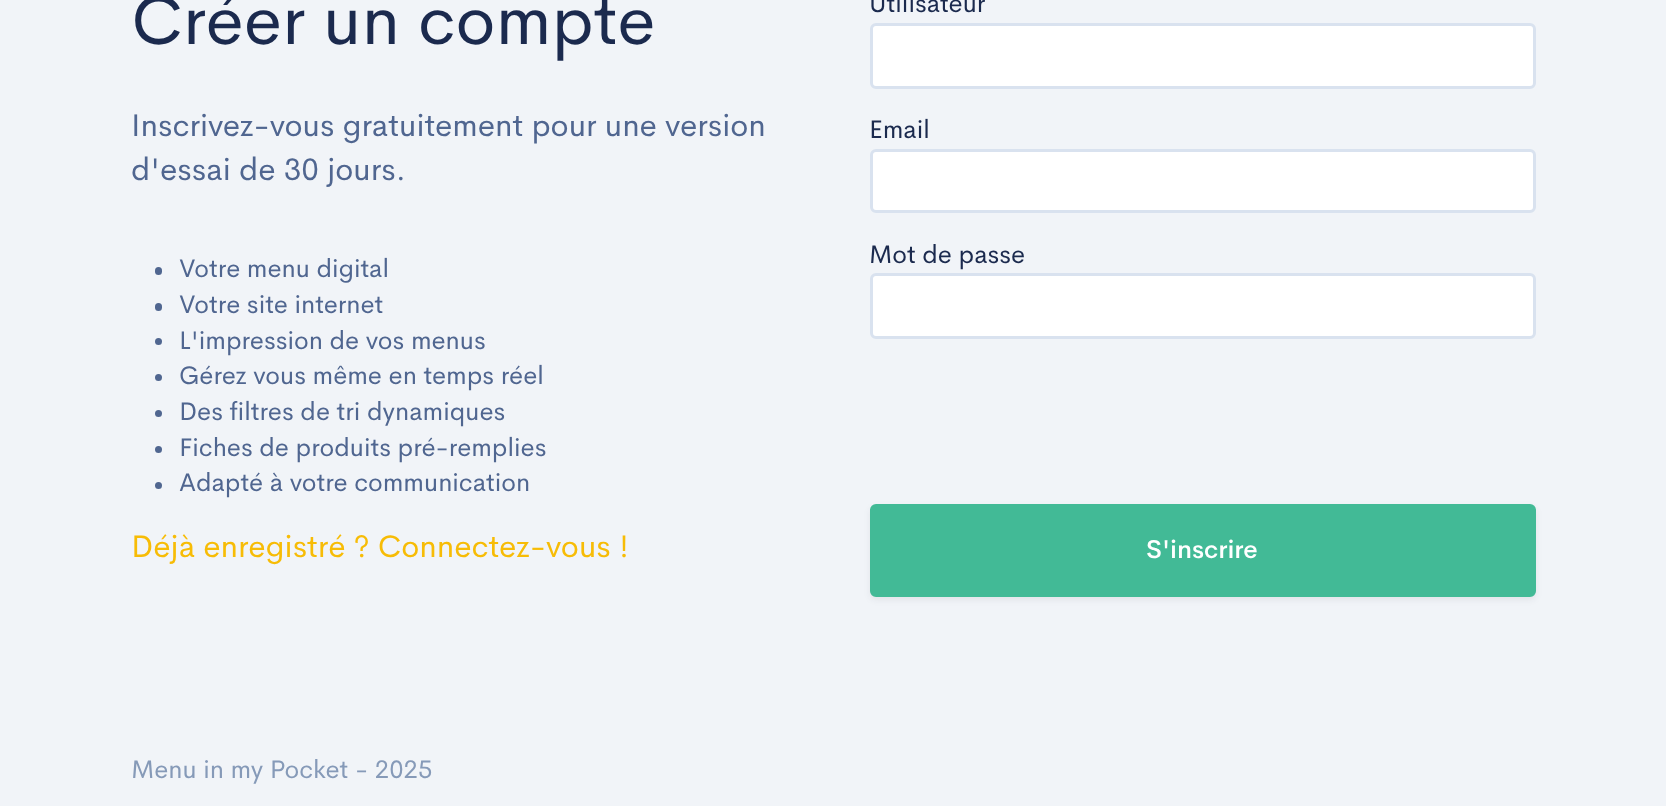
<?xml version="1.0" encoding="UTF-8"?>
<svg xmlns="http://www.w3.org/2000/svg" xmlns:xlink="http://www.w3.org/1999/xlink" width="1666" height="806">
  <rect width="100%" height="100%" fill="#f1f4f8" />
  <rect x="155" y="267" width="7" height="8" rx="3.5" fill="#506690" />
  <rect x="155" y="303" width="7" height="8" rx="3.5" fill="#506690" />
  <circle cx="158.5" cy="341.5" r="3.5" fill="#506690" />
  <circle cx="158.5" cy="377.5" r="3.5" fill="#506690" />
  <circle cx="158.5" cy="413.5" r="3.5" fill="#506690" />
  <circle cx="158.5" cy="449.5" r="3.5" fill="#506690" />
  <circle cx="158.5" cy="485.5" r="3.5" fill="#506690" />
  <rect x="871.5" y="24.5" width="663" height="63" rx="4.5" fill="#ffffff" stroke="#d9e2ef" stroke-width="3" />
  <rect x="871.5" y="150.5" width="663" height="61" rx="4.5" fill="#ffffff" stroke="#d9e2ef" stroke-width="3" />
  <rect x="871.5" y="274.5" width="663" height="63" rx="4.5" fill="#ffffff" stroke="#d9e2ef" stroke-width="3" />
  <rect x="870" y="507" width="666" height="93" rx="6" fill="#161c2d" fill-opacity="0.07" filter="blur(3px)" />
  <rect x="871" y="505" width="664" height="91" rx="5" fill="#42ba96" stroke="#42ba96" stroke-width="2" />
  <text x="131" y="44" style="font-family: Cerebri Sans; font-size: 69.25px; fill: #1b2a4e">Créer un compte</text>
  <text x="131" y="136" style="font-family: Cerebri Sans; font-size: 31.4px; fill: #506690">Inscrivez-vous gratuitement pour une version</text>
  <text x="131" y="180" style="font-family: Cerebri Sans; font-size: 31.4px; fill: #506690">d'essai de 30 jours.</text>
  <text x="179" y="277" style="font-family: Cerebri Sans; font-size: 25.5px; fill: #506690">Votre menu digital</text>
  <text x="179" y="313" style="font-family: Cerebri Sans; font-size: 25.5px; fill: #506690">Votre site internet</text>
  <text x="179" y="349" style="font-family: Cerebri Sans; font-size: 25.5px; fill: #506690">L'impression de vos menus</text>
  <text x="179" y="384" style="font-family: Cerebri Sans; font-size: 25.5px; fill: #506690">Gérez vous même en temps réel</text>
  <text x="179" y="420" style="font-family: Cerebri Sans; font-size: 25.5px; fill: #506690">Des filtres de tri dynamiques</text>
  <text x="179" y="456" style="font-family: Cerebri Sans; font-size: 25.5px; fill: #506690">Fiches de produits pré-remplies</text>
  <text x="179" y="491" style="font-family: Cerebri Sans; font-size: 25.5px; fill: #506690">Adapté à votre communication</text>
  <text x="131" y="557" style="font-family: Cerebri Sans; font-size: 31.4px; fill: #f7bc06">Déjà enregistré ? Connectez-vous !</text>
  <text x="869" y="12" style="font-family: Cerebri Sans; font-size: 25.5px; fill: #1b2a4e">Utilisateur</text>
  <text x="869" y="138" style="font-family: Cerebri Sans; font-size: 25.5px; fill: #1b2a4e">Email</text>
  <text x="869" y="263" style="font-family: Cerebri Sans; font-size: 25.5px; fill: #1b2a4e">Mot de passe</text>
  <text x="1146" y="558" style="font-family: Cerebri Sans; font-size: 25.5px; font-weight: 500; fill: #ffffff">S'inscrire</text>
  <text x="131" y="778" style="font-family: Cerebri Sans; font-size: 25.5px; fill: #869ab8">Menu in my Pocket - 2025</text>
</svg>
